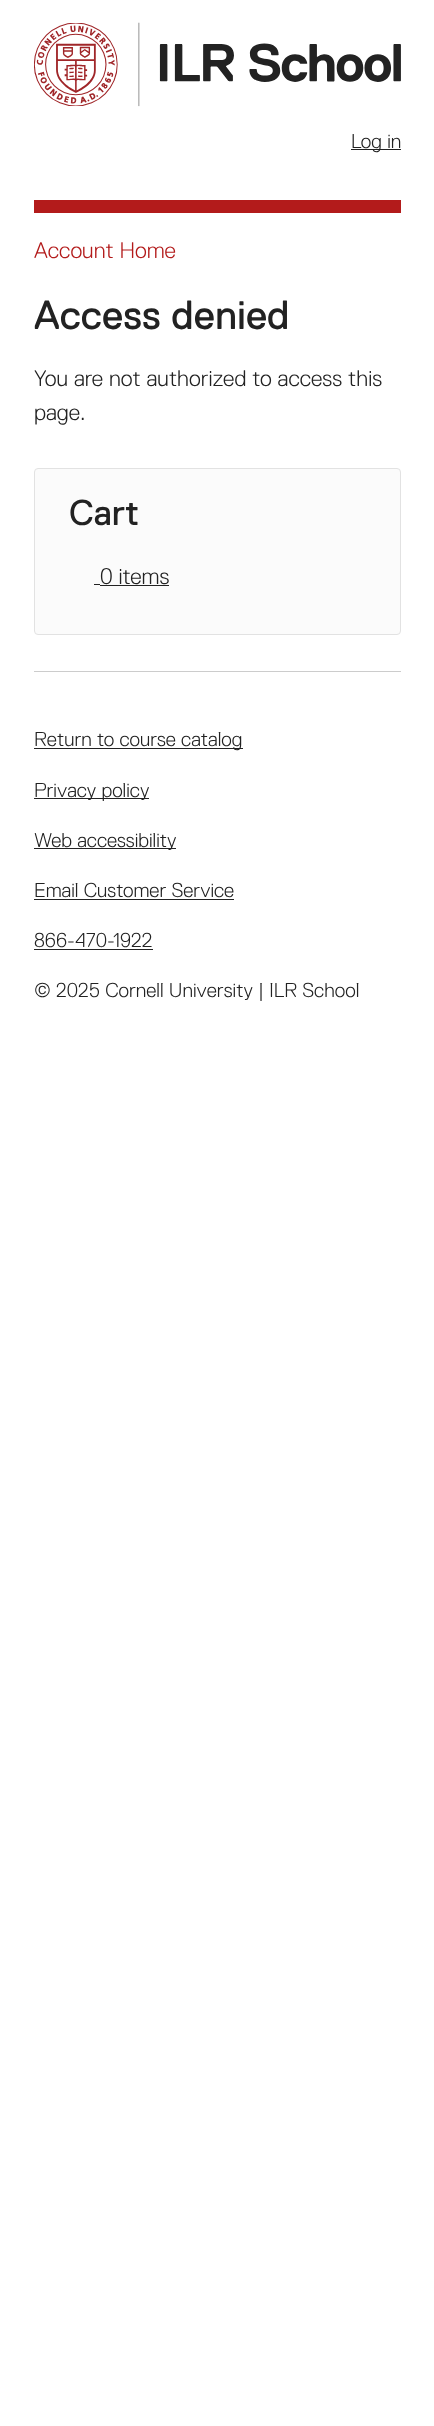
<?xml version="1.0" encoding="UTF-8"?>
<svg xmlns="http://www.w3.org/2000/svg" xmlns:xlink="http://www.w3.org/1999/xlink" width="434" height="2426">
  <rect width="100%" height="100%" fill="#ffffff" />
  <rect x="34" y="200" width="367" height="13" fill="#b31b1b" />
  <image x="34" y="22" width="367" height="85" xlink:href="image1.png" />
  <rect x="351" y="149" width="50" height="1" fill="#222222" />
  <rect x="34.5" y="468.5" width="366" height="166" rx="3.5" fill="#fbfbfb" stroke="#e2e2e2" />
  <rect x="94" y="584" width="6" height="1" fill="#222222" />
  <rect x="100" y="585" width="69" height="1" fill="#222222" />
  <rect x="34" y="671" width="367" height="1" fill="#cccccc" />
  <rect x="34" y="748" width="209" height="1" fill="#222222" />
  <rect x="34" y="798" width="115" height="1" fill="#222222" />
  <rect x="34" y="848" width="142" height="1" fill="#222222" />
  <rect x="34" y="899" width="200" height="1" fill="#222222" />
  <rect x="34" y="949" width="119" height="1" fill="#222222" />
  <text x="351" y="148" style="font-family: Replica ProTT; font-size: 20.1px; font-weight: 300; fill: #222222">Log in</text>
  <text x="34" y="258" style="font-family: Replica ProTT; font-size: 22.6px; font-weight: 300; fill: #b31b1b">Account Home</text>
  <text x="34" y="329" style="font-family: Replica ProTT; font-size: 40.75px; fill: #222222">Access denied</text>
  <text x="34" y="386" style="font-family: Replica ProTT; font-size: 22.6px; font-weight: 300; fill: #222222">You are not authorized to access this</text>
  <text x="34" y="420" style="font-family: Replica ProTT; font-size: 22.6px; font-weight: 300; fill: #222222">page.</text>
  <text x="69" y="525" style="font-family: Replica ProTT; font-size: 36px; fill: #222222">Cart</text>
  <text x="100" y="584" style="font-family: Replica ProTT; font-size: 22.6px; font-weight: 300; fill: #222222">0 items</text>
  <text x="34" y="746" style="font-family: Replica ProTT; font-size: 20.1px; font-weight: 300; fill: #222222">Return to course catalog</text>
  <text x="34" y="797" style="font-family: Replica ProTT; font-size: 20.1px; font-weight: 300; fill: #222222">Privacy policy</text>
  <text x="34" y="847" style="font-family: Replica ProTT; font-size: 20.1px; font-weight: 300; fill: #222222">Web accessibility</text>
  <text x="34" y="897" style="font-family: Replica ProTT; font-size: 20.1px; font-weight: 300; fill: #222222">Email Customer Service</text>
  <text x="34" y="947" style="font-family: Replica ProTT; font-size: 20.1px; font-weight: 300; fill: #222222">866-470-1922</text>
  <text x="34" y="997" style="font-family: Replica ProTT; font-size: 20.1px; font-weight: 300; fill: #222222">© 2025 Cornell University | ILR School</text>
</svg>
